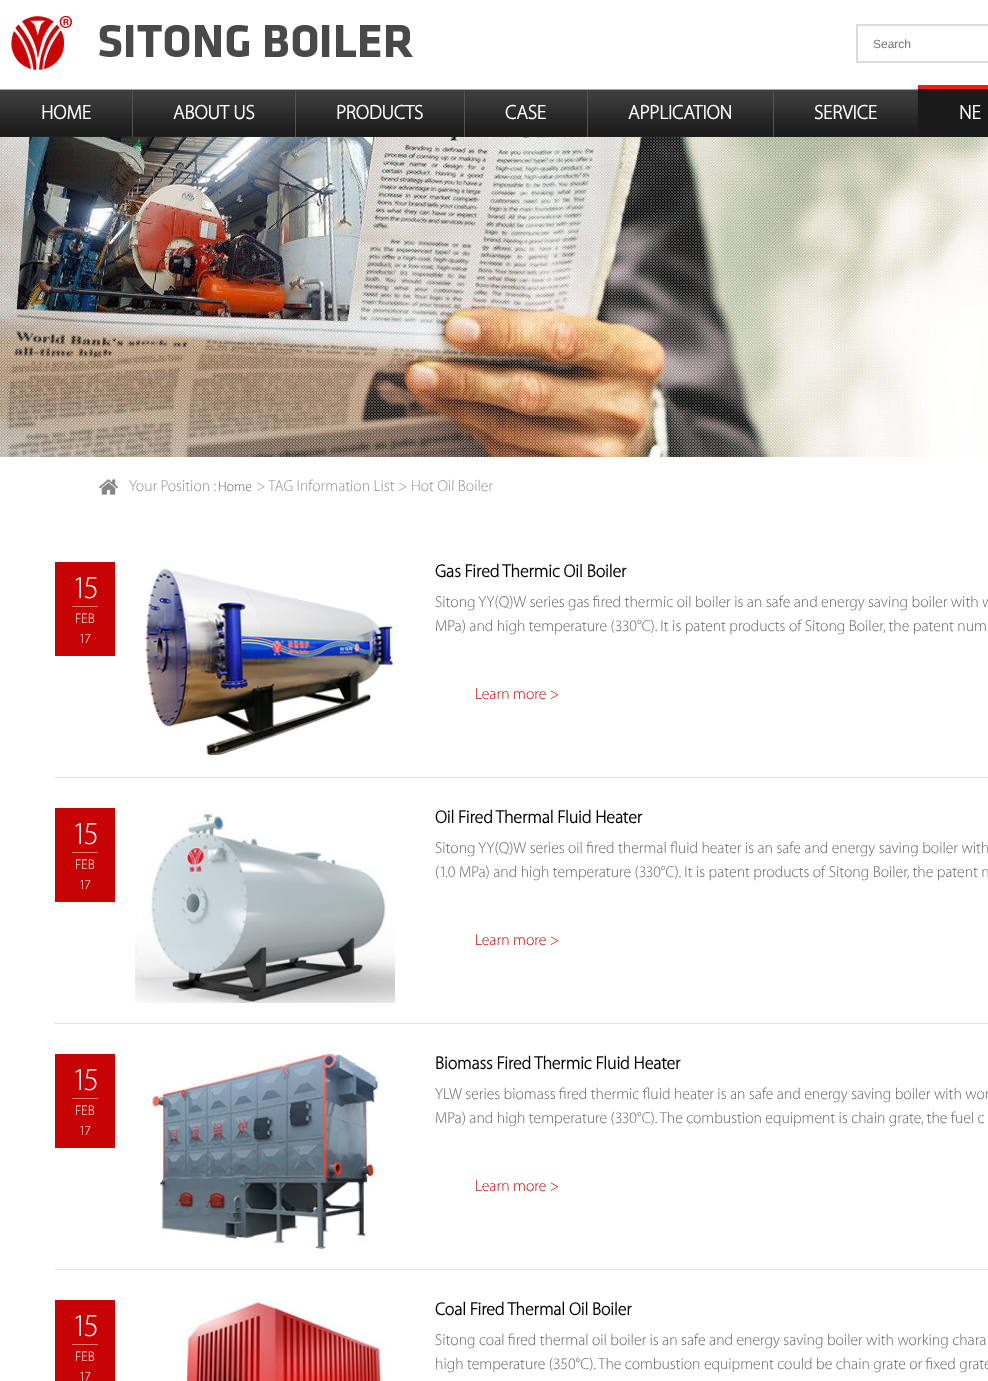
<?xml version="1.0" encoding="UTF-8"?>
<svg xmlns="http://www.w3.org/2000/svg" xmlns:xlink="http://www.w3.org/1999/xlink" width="988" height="1381">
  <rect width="100%" height="100%" fill="#ffffff" />
  <image x="11" y="15" width="402" height="55" xlink:href="image1.png" />
  <rect x="857" y="25" width="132" height="37" fill="none" stroke="#dbdbdb" stroke-width="2" />
  <image x="0" y="89" width="918" height="48" xlink:href="image2.png" />
  <rect x="132" y="91" width="1" height="46" fill="#545454" />
  <rect x="295" y="91" width="1" height="46" fill="#545454" />
  <rect x="464" y="91" width="1" height="46" fill="#545454" />
  <rect x="587" y="91" width="1" height="46" fill="#545454" />
  <rect x="773" y="91" width="1" height="46" fill="#545454" />
  <rect x="918" y="89" width="70" height="48" fill="#1a1a1a" />
  <rect x="918" y="85" width="70" height="4" fill="#ee1c1c" />
  <image x="0" y="137" width="988" height="320" xlink:href="image3.png" />
  <image x="99" y="479" width="19" height="16" xlink:href="image4.png" />
  <rect x="55" y="777" width="933" height="1" fill="#e2e2e2" />
  <rect x="55" y="562" width="60" height="94" fill="#c70303" />
  <rect x="72" y="606" width="26" height="1" fill="#e17a7a" />
  <image x="145" y="569" width="248" height="186" xlink:href="image5.png" />
  <rect x="55" y="1023" width="933" height="1" fill="#e2e2e2" />
  <rect x="55" y="808" width="60" height="94" fill="#c70303" />
  <rect x="72" y="852" width="26" height="1" fill="#e17a7a" />
  <image x="135" y="810" width="260" height="193" xlink:href="image6.png" />
  <rect x="55" y="1269" width="933" height="1" fill="#e2e2e2" />
  <rect x="55" y="1054" width="60" height="94" fill="#c70303" />
  <rect x="72" y="1098" width="26" height="1" fill="#e17a7a" />
  <image x="152" y="1054" width="230" height="195" xlink:href="image7.png" />
  <rect x="55" y="1300" width="60" height="81" fill="#c70303" />
  <rect x="72" y="1344" width="26" height="1" fill="#e17a7a" />
  <image x="186" y="1300" width="200" height="81" xlink:href="image8.png" />
  <text x="873" y="48" style="font-family: Liberation Sans; font-size: 12px; fill: #757575">Search</text>
  <text x="41" y="119" style="font-family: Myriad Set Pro; font-size: 20px; font-weight: bold; fill: #ffffff">HOME</text>
  <text x="173" y="119" style="font-family: Myriad Set Pro; font-size: 20px; font-weight: bold; fill: #ffffff">ABOUT US</text>
  <text x="336" y="119" style="font-family: Myriad Set Pro; font-size: 20px; font-weight: bold; fill: #ffffff">PRODUCTS</text>
  <text x="505" y="119" style="font-family: Myriad Set Pro; font-size: 20px; font-weight: bold; fill: #ffffff">CASE</text>
  <text x="628" y="119" style="font-family: Myriad Set Pro; font-size: 20px; font-weight: bold; fill: #ffffff">APPLICATION</text>
  <text x="814" y="119" style="font-family: Myriad Set Pro; font-size: 20px; font-weight: bold; fill: #ffffff">SERVICE</text>
  <text x="959" y="119" style="font-family: Myriad Set Pro; font-size: 20px; font-weight: bold; fill: #ffffff">NE</text>
  <text x="129" y="491" style="font-family: Myriad Set Pro; font-size: 16px; font-weight: 100; fill: #919191">Your Position :</text>
  <text x="218" y="491" style="font-family: Myriad Set Pro; font-size: 14px; font-weight: 100; fill: #666666">Home</text>
  <text x="256" y="491" style="font-family: Myriad Set Pro; font-size: 16px; font-weight: 100; fill: #919191">&gt; TAG Information List &gt; Hot Oil Boiler</text>
  <text x="72" y="598" style="font-family: Myriad Set Pro; font-size: 32px; font-weight: 100; fill: #ffffff">15</text>
  <text x="75" y="623" style="font-family: Myriad Set Pro; font-size: 14px; font-weight: 100; fill: #ffffff">FEB</text>
  <text x="79" y="643" style="font-family: Myriad Set Pro; font-size: 14px; font-weight: 100; fill: #ffffff">17</text>
  <text x="435" y="577" style="font-family: Myriad Set Pro; font-size: 18px; font-weight: bold; fill: #000000">Gas Fired Thermic Oil Boiler</text>
  <text x="435" y="607" style="font-family: Myriad Set Pro; font-size: 16px; font-weight: 100; fill: #666666">Sitong YY(Q)W series gas fired thermic oil boiler is an safe and energy saving boiler with w</text>
  <text x="435" y="631" style="font-family: Myriad Set Pro; font-size: 16px; font-weight: 100; fill: #666666">MPa) and high temperature (330℃). It is patent products of Sitong Boiler, the patent num</text>
  <text x="475" y="699" style="font-family: Myriad Set Pro; font-size: 16px; font-weight: 100; fill: #c70303">Learn more &gt;</text>
  <text x="72" y="844" style="font-family: Myriad Set Pro; font-size: 32px; font-weight: 100; fill: #ffffff">15</text>
  <text x="75" y="869" style="font-family: Myriad Set Pro; font-size: 14px; font-weight: 100; fill: #ffffff">FEB</text>
  <text x="79" y="889" style="font-family: Myriad Set Pro; font-size: 14px; font-weight: 100; fill: #ffffff">17</text>
  <text x="435" y="823" style="font-family: Myriad Set Pro; font-size: 18px; font-weight: bold; fill: #000000">Oil Fired Thermal Fluid Heater</text>
  <text x="435" y="853" style="font-family: Myriad Set Pro; font-size: 16px; font-weight: 100; fill: #666666">Sitong YY(Q)W series oil fired thermal fluid heater is an safe and energy saving boiler with</text>
  <text x="435" y="877" style="font-family: Myriad Set Pro; font-size: 16px; font-weight: 100; fill: #666666">(1.0 MPa) and high temperature (330℃). It is patent products of Sitong Boiler, the patent n</text>
  <text x="475" y="945" style="font-family: Myriad Set Pro; font-size: 16px; font-weight: 100; fill: #c70303">Learn more &gt;</text>
  <text x="72" y="1090" style="font-family: Myriad Set Pro; font-size: 32px; font-weight: 100; fill: #ffffff">15</text>
  <text x="75" y="1115" style="font-family: Myriad Set Pro; font-size: 14px; font-weight: 100; fill: #ffffff">FEB</text>
  <text x="79" y="1135" style="font-family: Myriad Set Pro; font-size: 14px; font-weight: 100; fill: #ffffff">17</text>
  <text x="435" y="1069" style="font-family: Myriad Set Pro; font-size: 18px; font-weight: bold; fill: #000000">Biomass Fired Thermic Fluid Heater</text>
  <text x="435" y="1099" style="font-family: Myriad Set Pro; font-size: 16px; font-weight: 100; fill: #666666">YLW series biomass fired thermic fluid heater is an safe and energy saving boiler with wor</text>
  <text x="435" y="1123" style="font-family: Myriad Set Pro; font-size: 16px; font-weight: 100; fill: #666666">MPa) and high temperature (330℃). The combustion equipment is chain grate, the fuel c</text>
  <text x="475" y="1191" style="font-family: Myriad Set Pro; font-size: 16px; font-weight: 100; fill: #c70303">Learn more &gt;</text>
  <text x="72" y="1336" style="font-family: Myriad Set Pro; font-size: 32px; font-weight: 100; fill: #ffffff">15</text>
  <text x="75" y="1361" style="font-family: Myriad Set Pro; font-size: 14px; font-weight: 100; fill: #ffffff">FEB</text>
  <text x="79" y="1381" style="font-family: Myriad Set Pro; font-size: 14px; font-weight: 100; fill: #ffffff">17</text>
  <text x="435" y="1315" style="font-family: Myriad Set Pro; font-size: 18px; font-weight: bold; fill: #000000">Coal Fired Thermal Oil Boiler</text>
  <text x="435" y="1345" style="font-family: Myriad Set Pro; font-size: 16px; font-weight: 100; fill: #666666">Sitong coal fired thermal oil boiler is an safe and energy saving boiler with working chara</text>
  <text x="435" y="1369" style="font-family: Myriad Set Pro; font-size: 16px; font-weight: 100; fill: #666666">high temperature (350℃). The combustion equipment could be chain grate or fixed grate</text>
</svg>
